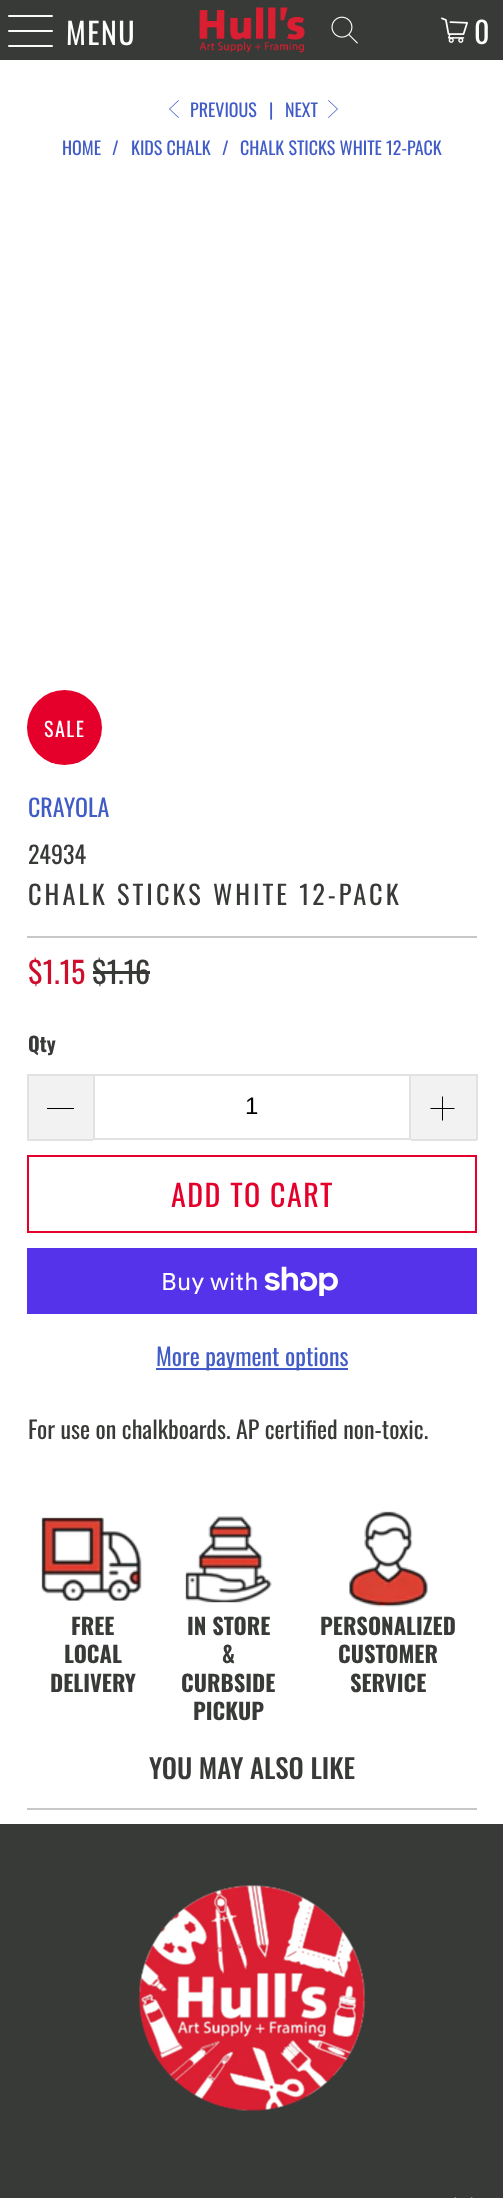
<?xml version="1.0" encoding="UTF-8"?>
<svg xmlns="http://www.w3.org/2000/svg" xmlns:xlink="http://www.w3.org/1999/xlink" width="503" height="2198">
  <rect width="100%" height="100%" fill="#ffffff" />
  <rect width="503" height="60" fill="#373a36" />
  <rect x="8" y="15" width="45" height="2" rx="1" fill="#fafafa" />
  <rect x="8" y="30" width="45" height="2" rx="1" fill="#fafafa" />
  <rect x="8" y="45" width="45" height="2" rx="1" fill="#fafafa" />
  <image x="199" y="7" width="106" height="46" xlink:href="image1.png" />
  <image x="331" y="16" width="27" height="28" xlink:href="image2.png" />
  <image x="441" y="17" width="27" height="26" xlink:href="image3.png" />
  <path d="M 178.5 118 l -9.5 -9 l 9.5 -9 l 0.5 0.5 l -9 8.5 l 9 8.5 z" fill="#425cc7" />
  <path d="M 328.5 118 l -0.5 -0.5 l 9 -8.5 l -9 -8.5 l 0.5 -0.5 l 9.5 9 z" fill="#425cc7" />
  <circle cx="64.5" cy="727.5" r="37.5" fill="#e4002b" />
  <rect x="27" y="936" width="450" height="2" fill="#c8c8c8" />
  <rect x="93" y="971" width="57" height="3" fill="#373a36" />
  <rect x="29" y="1076" width="64" height="63" fill="#f2f2f2" />
  <rect x="27" y="1074" width="66" height="2" fill="#e2e2e2" />
  <rect x="27" y="1139" width="66" height="2" fill="#e2e2e2" />
  <rect x="27" y="1074" width="2" height="66" fill="#e2e2e2" />
  <rect x="47" y="1108" width="27" height="1" fill="#000000" />
  <rect x="94" y="1075" width="316" height="64" fill="none" stroke="#e2e2e2" stroke-width="2" />
  <rect x="411" y="1076" width="65" height="63" fill="#f2f2f2" />
  <rect x="411" y="1074" width="66" height="2" fill="#e2e2e2" />
  <rect x="476" y="1074" width="2" height="66" fill="#e2e2e2" />
  <rect x="411" y="1139" width="66" height="2" fill="#e2e2e2" />
  <image x="430" y="1096" width="25" height="25" xlink:href="image4.png" />
  <rect x="28" y="1156" width="448" height="76" fill="none" stroke="#e4002b" stroke-width="2" />
  <rect x="27" y="1248" width="450" height="66" fill="#5433eb" />
  <image x="264" y="1266" width="74" height="30" xlink:href="image5.png" />
  <rect x="156" y="1368" width="192" height="2" fill="#425cc7" />
  <image x="41" y="1517" width="101" height="84" xlink:href="image6.png" />
  <image x="185" y="1516" width="87" height="87" xlink:href="image7.png" />
  <image x="349" y="1511" width="79" height="96" xlink:href="image8.png" />
  <rect x="27" y="1808" width="450" height="2" fill="#c8c8c8" />
  <rect y="1824" width="503" height="374" fill="#373a36" />
  <image x="139" y="1885" width="226" height="226" xlink:href="image9.png" />
  <path d="M 463.5 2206.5 l -9 -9.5 h 0.5 l 8.5 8.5 l 8.5 -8.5 h 0.5 z" fill="#ffffff" />
  <text x="66" y="45" style="font-family: Oswald; font-size: 30px; letter-spacing: 1.5px; fill: #ffffff">MENU</text>
  <text x="474" y="44" style="font-family: Oswald; font-size: 30px; fill: #ffffff">0</text>
  <text x="190" y="117" style="font-family: Oswald; font-size: 18px; fill: #425cc7">PREVIOUS</text>
  <text x="269" y="117" style="font-family: Oswald; font-size: 18px; fill: #425cc7">|</text>
  <text x="285" y="117" style="font-family: Oswald; font-size: 18px; fill: #425cc7">NEXT</text>
  <text x="62" y="155" style="font-family: Oswald; font-size: 18px; fill: #425cc7">HOME</text>
  <text x="112" y="155" style="font-family: Oswald; font-size: 18px; fill: #425cc7">/</text>
  <text x="131" y="155" style="font-family: Oswald; font-size: 18px; fill: #425cc7">KIDS CHALK</text>
  <text x="222" y="155" style="font-family: Oswald; font-size: 18px; fill: #425cc7">/</text>
  <text x="240" y="155" style="font-family: Oswald; font-size: 18px; fill: #425cc7">CHALK STICKS WHITE 12-PACK</text>
  <text x="44" y="737" style="font-family: Oswald; font-size: 20px; letter-spacing: 1.5px; fill: #ffffff">SALE</text>
  <text x="28" y="817" style="font-family: Oswald; font-size: 24px; fill: #425cc7">CRAYOLA</text>
  <text x="28" y="864" style="font-family: Oswald; font-size: 24px; fill: #373a36">24934</text>
  <text x="28" y="905" style="font-family: Oswald; font-size: 26.4px; letter-spacing: 3px; fill: #373a36">CHALK STICKS WHITE 12-PACK</text>
  <text x="28" y="984" style="font-family: Oswald; font-size: 30px; fill: #ce0e2d">$1.15</text>
  <text x="92" y="984" style="font-family: Oswald; font-size: 30px; fill: #373a36">$1.16</text>
  <text x="28" y="1052" style="font-family: Oswald; font-size: 20px; font-weight: bold; fill: #373a36">Qty</text>
  <text x="245" y="1114" style="font-family: Liberation Sans; font-size: 24px; fill: #000000">1</text>
  <text x="171" y="1207" style="font-family: Oswald; font-size: 30px; letter-spacing: 1.5px; fill: #e4002b">ADD TO CART</text>
  <text x="161" y="1290" style="font-family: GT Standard; font-size: 24px; fill: #ffffff">Buy with</text>
  <text x="156" y="1366" style="font-family: Oswald; font-size: 24px; fill: #425cc7">More payment options</text>
  <text x="28" y="1439" style="font-family: Oswald; font-size: 24px; fill: #373a36">For use on chalkboards. AP certified non-toxic.</text>
  <text x="71" y="1635" style="font-family: Oswald; font-size: 22.5px; font-weight: bold; fill: #373a36">FREE</text>
  <text x="64" y="1663" style="font-family: Oswald; font-size: 22.5px; font-weight: bold; fill: #373a36">LOCAL</text>
  <text x="50" y="1692" style="font-family: Oswald; font-size: 22.5px; font-weight: bold; fill: #373a36">DELIVERY</text>
  <text x="187" y="1635" style="font-family: Oswald; font-size: 22.5px; font-weight: bold; fill: #373a36">IN STORE</text>
  <text x="222" y="1663" style="font-family: Oswald; font-size: 22.5px; font-weight: bold; fill: #373a36">&amp;</text>
  <text x="181" y="1692" style="font-family: Oswald; font-size: 22.5px; font-weight: bold; fill: #373a36">CURBSIDE</text>
  <text x="193" y="1720" style="font-family: Oswald; font-size: 22.5px; font-weight: bold; fill: #373a36">PICKUP</text>
  <text x="320" y="1635" style="font-family: Oswald; font-size: 22.5px; font-weight: bold; fill: #373a36">PERSONALIZED</text>
  <text x="338" y="1663" style="font-family: Oswald; font-size: 22.5px; font-weight: bold; fill: #373a36">CUSTOMER</text>
  <text x="350" y="1692" style="font-family: Oswald; font-size: 22.5px; font-weight: bold; fill: #373a36">SERVICE</text>
  <text x="149" y="1779" style="font-family: Oswald; font-size: 27px; font-weight: 500; fill: #373a36">YOU MAY ALSO LIKE</text>
</svg>
